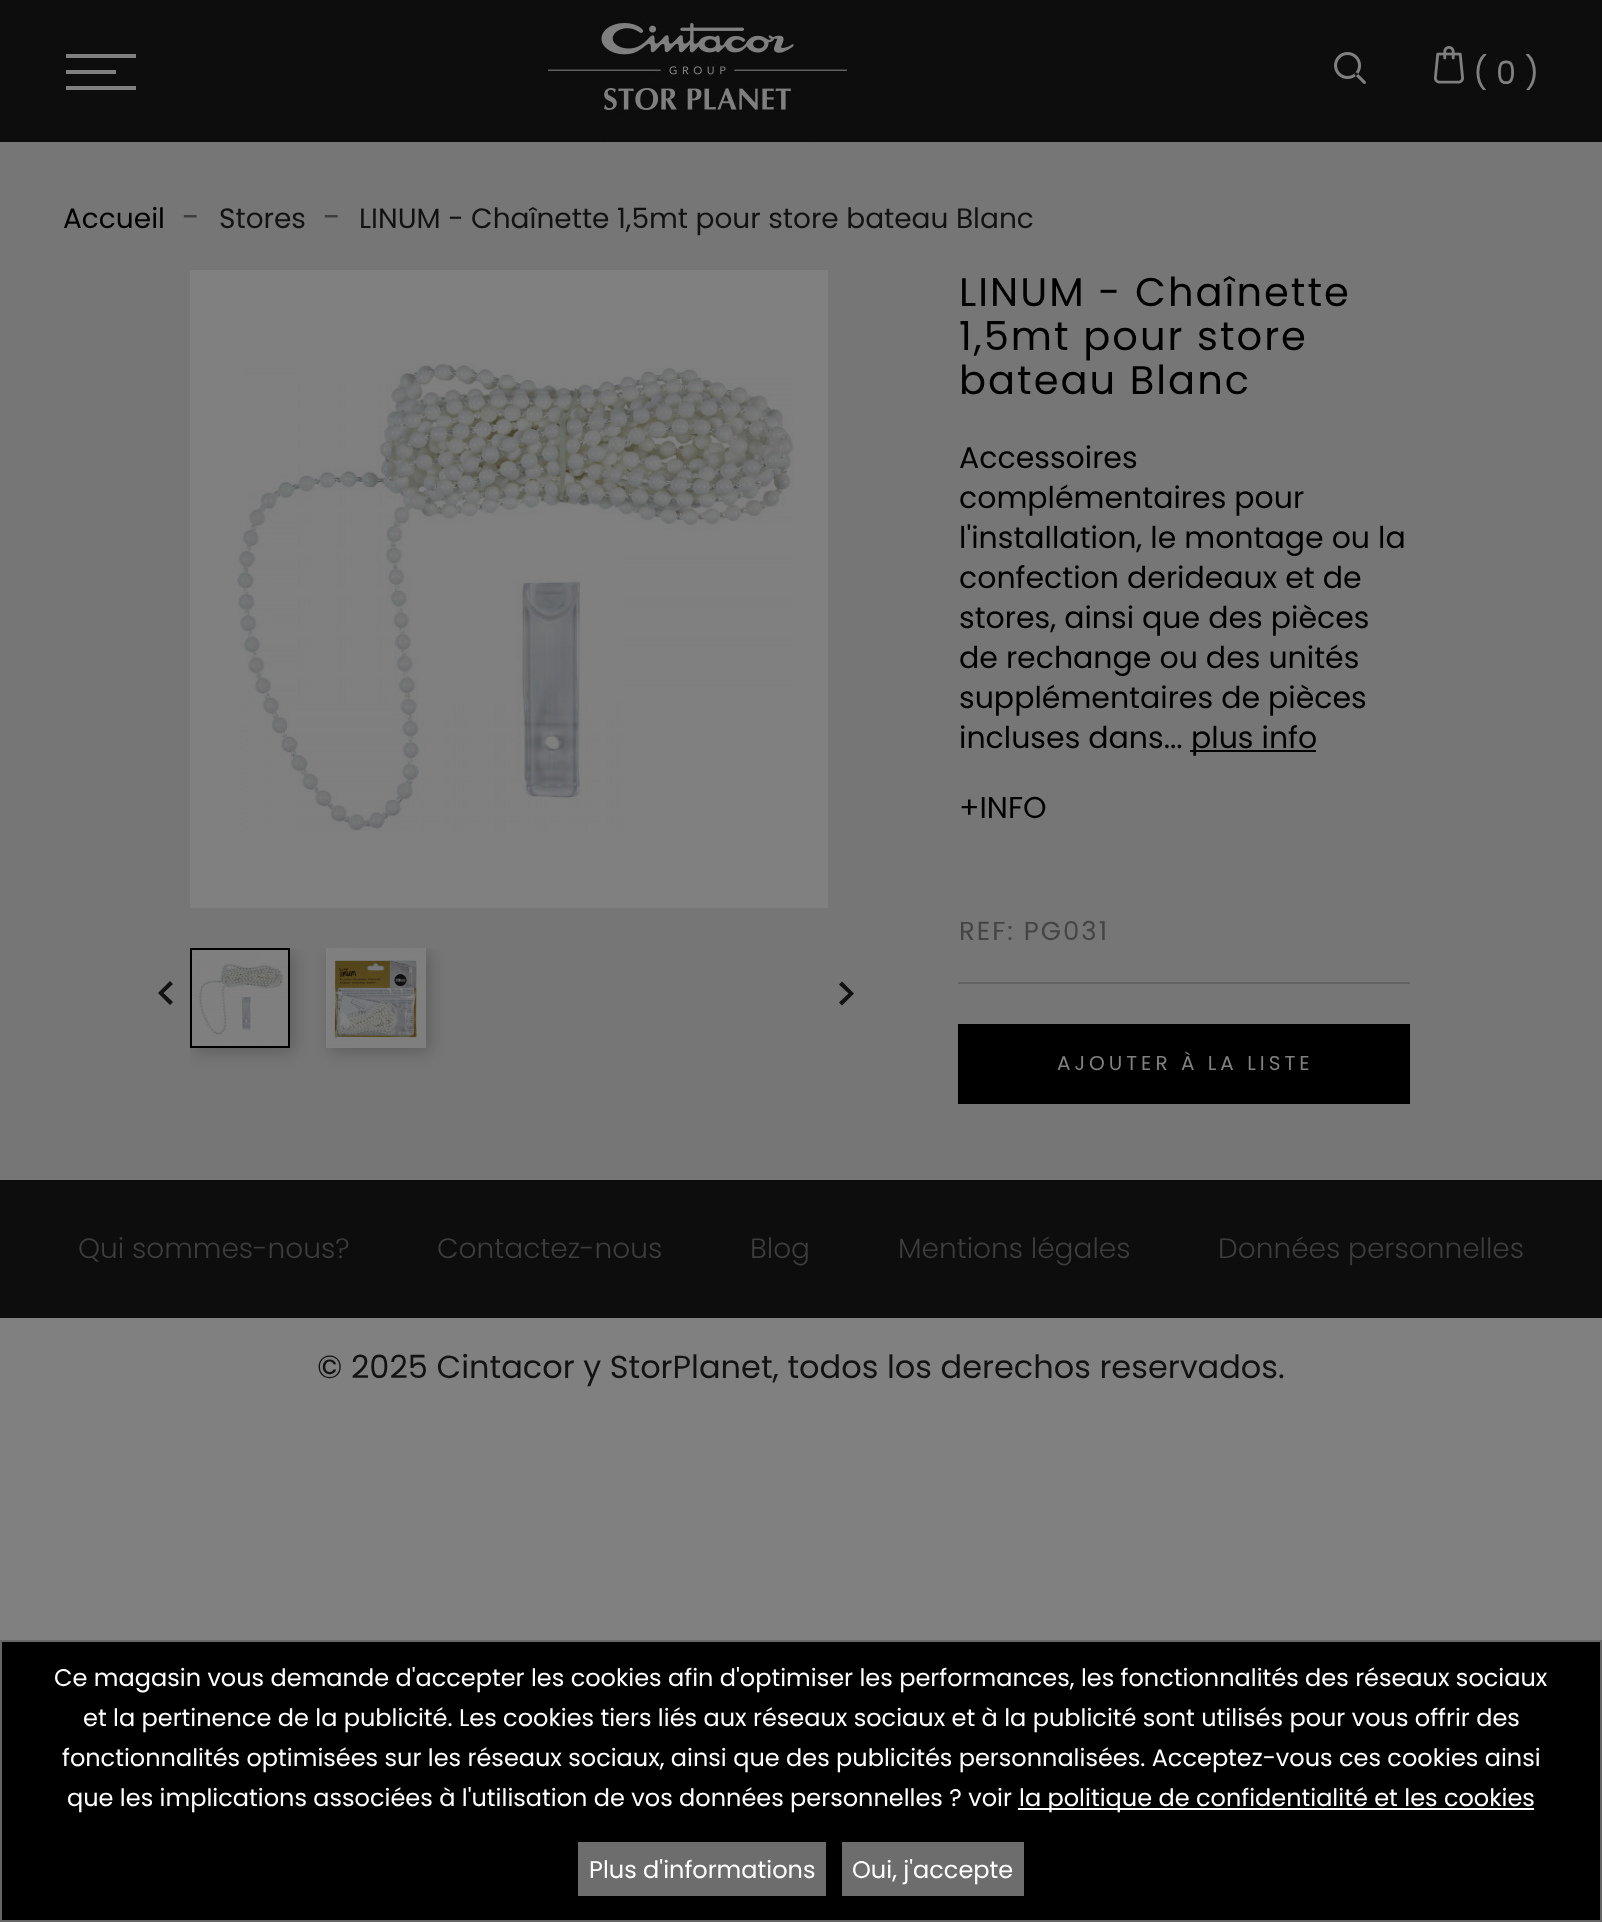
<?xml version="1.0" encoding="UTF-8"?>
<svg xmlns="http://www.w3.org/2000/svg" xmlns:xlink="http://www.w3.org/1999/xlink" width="1602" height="1922">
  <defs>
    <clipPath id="clip1"><rect x="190" y="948" width="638" height="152" /></clipPath>
  </defs>
  <rect width="100%" height="100%" fill="#808080" />
  <rect width="1602" height="142" fill="#0d0d0d" />
  <rect x="66" y="54" width="70" height="4" fill="#808080" />
  <rect x="66" y="70" width="50" height="4" fill="#808080" />
  <rect x="66" y="86" width="70" height="4" fill="#808080" />
  <image x="541" y="19" width="323" height="123" xlink:href="image1.png" />
  <image x="1334" y="52" width="32" height="32" xlink:href="image2.png" />
  <image x="1434" y="46" width="30" height="38" xlink:href="image3.png" />
  <rect y="142" width="1602" height="1038" fill="#767676" />
  <rect x="190" y="270" width="638" height="638" fill="#808080" />
  <image x="237" y="363" width="557" height="468" xlink:href="image4.png" />
  <g clip-path="url(#clip1)">
    <rect x="194" y="952" width="100" height="100" fill="#000000" fill-opacity="0.2" filter="blur(8px)" />
    <rect x="330" y="952" width="100" height="100" fill="#000000" fill-opacity="0.2" filter="blur(8px)" />
  </g>
  <rect x="191" y="949" width="98" height="98" fill="none" stroke="#000000" stroke-width="2" />
  <image x="326" y="948" width="100" height="100" xlink:href="image5.png" />
  <image x="192" y="950" width="96" height="96" xlink:href="image6.png" />
  <path d="M 173 1002 l -3 3 l -12 -12 l 12 -12 l 3 3 l -9.5 9 z" fill="#121212" />
  <path d="M 839 1002.5 l 9.5 -9 l -9.5 -9 l 3 -3 l 12 12 l -12 12 z" fill="#121212" />
  <rect x="1190" y="750" width="126" height="2" fill="#000000" />
  <rect x="958" y="982" width="452" height="2" fill="#646363" />
  <rect x="958" y="1024" width="452" height="80" fill="#000000" />
  <rect y="1180" width="1602" height="138" fill="#0d0d0d" />
  <rect x="1" y="1641" width="1600" height="280" fill="none" stroke="#666666" stroke-width="2" />
  <rect x="2" y="1642" width="1598" height="278" fill="#000000" />
  <rect x="1018" y="1808" width="516" height="2" fill="#ffffff" />
  <rect x="578" y="1842" width="248" height="54" fill="#6d6d6d" />
  <rect x="842" y="1842" width="182" height="54" fill="#6d6d6d" />
  <text x="1473" y="84" style="font-family: Poppins; font-size: 32px; fill: #808080">( 0 )</text>
  <text x="63" y="228" style="font-family: Poppins; font-size: 28px; fill: #000000">Accueil</text>
  <text x="182" y="228" style="font-family: Poppins; font-size: 32px; fill: #3d3d3d">-</text>
  <text x="219" y="228" style="font-family: Poppins; font-size: 28px; fill: #121212">Stores</text>
  <text x="323" y="228" style="font-family: Poppins; font-size: 32px; fill: #3d3d3d">-</text>
  <text x="359" y="228" style="font-family: Poppins; font-size: 28px; fill: #121212">LINUM - Chaînette 1,5mt pour store bateau Blanc</text>
  <text x="959" y="306" style="font-family: Poppins; font-size: 40px; letter-spacing: 2px; fill: #000000">LINUM - Chaînette</text>
  <text x="959" y="350" style="font-family: Poppins; font-size: 40px; letter-spacing: 2px; fill: #000000">1,5mt pour store</text>
  <text x="959" y="394" style="font-family: Poppins; font-size: 40px; letter-spacing: 2px; fill: #000000">bateau Blanc</text>
  <text x="959" y="468" style="font-family: Poppins; font-size: 30px; fill: #000000">Accessoires</text>
  <text x="959" y="508" style="font-family: Poppins; font-size: 30px; fill: #000000">complémentaires pour</text>
  <text x="959" y="548" style="font-family: Poppins; font-size: 30px; fill: #000000">l'installation, le montage ou la</text>
  <text x="959" y="588" style="font-family: Poppins; font-size: 30px; fill: #000000">confection derideaux et de</text>
  <text x="959" y="628" style="font-family: Poppins; font-size: 30px; fill: #000000">stores, ainsi que des pièces</text>
  <text x="959" y="668" style="font-family: Poppins; font-size: 30px; fill: #000000">de rechange ou des unités</text>
  <text x="959" y="708" style="font-family: Poppins; font-size: 30px; fill: #000000">supplémentaires de pièces</text>
  <text x="959" y="748" style="font-family: Poppins; font-size: 30px; fill: #000000">incluses dans...</text>
  <text x="1191" y="748" style="font-family: Poppins; font-size: 30px; fill: #000000">plus info</text>
  <text x="959" y="818" style="font-family: Poppins; font-size: 30px; fill: #000000">+INFO</text>
  <text x="959" y="940" style="font-family: Poppins; font-size: 26px; letter-spacing: 2px; fill: #444444">REF: PG031</text>
  <text x="1057" y="1070" style="font-family: Poppins; font-size: 20px; letter-spacing: 4px; fill: #808080">AJOUTER À LA LISTE</text>
  <text x="78" y="1258" style="font-family: Poppins; font-size: 28px; font-weight: 300; fill: #3d3d3d">Qui sommes-nous?</text>
  <text x="437" y="1258" style="font-family: Poppins; font-size: 28px; font-weight: 300; fill: #3d3d3d">Contactez-nous</text>
  <text x="750" y="1258" style="font-family: Poppins; font-size: 28px; font-weight: 300; fill: #3d3d3d">Blog</text>
  <text x="898" y="1258" style="font-family: Poppins; font-size: 28px; font-weight: 300; fill: #3d3d3d">Mentions légales</text>
  <text x="1218" y="1258" style="font-family: Poppins; font-size: 28px; font-weight: 300; fill: #3d3d3d">Données personnelles</text>
  <text x="54" y="1686" style="font-family: Poppins; font-size: 24px; fill: #ffffff">Ce magasin vous demande d'accepter les cookies afin d'optimiser les performances, les fonctionnalités des réseaux sociaux</text>
  <text x="83" y="1726" style="font-family: Poppins; font-size: 24px; fill: #ffffff">et la pertinence de la publicité. Les cookies tiers liés aux réseaux sociaux et à la publicité sont utilisés pour vous offrir des</text>
  <text x="62" y="1766" style="font-family: Poppins; font-size: 24px; fill: #ffffff">fonctionnalités optimisées sur les réseaux sociaux, ainsi que des publicités personnalisées. Acceptez-vous ces cookies ainsi</text>
  <text x="67" y="1806" style="font-family: Poppins; font-size: 24px; fill: #ffffff">que les implications associées à l'utilisation de vos données personnelles ? voir</text>
  <text x="1019" y="1806" style="font-family: Poppins; font-size: 24px; fill: #ffffff">la politique de confidentialité et les cookies</text>
  <text x="589" y="1878" style="font-family: Poppins; font-size: 24px; fill: #ffffff">Plus d'informations</text>
  <text x="852" y="1878" style="font-family: Poppins; font-size: 24px; fill: #ffffff">Oui, j'accepte</text>
  <text x="317" y="1378" style="font-family: Poppins; font-size: 32px; fill: #121212">© 2025 Cintacor y StorPlanet, todos los derechos reservados.</text>
</svg>
